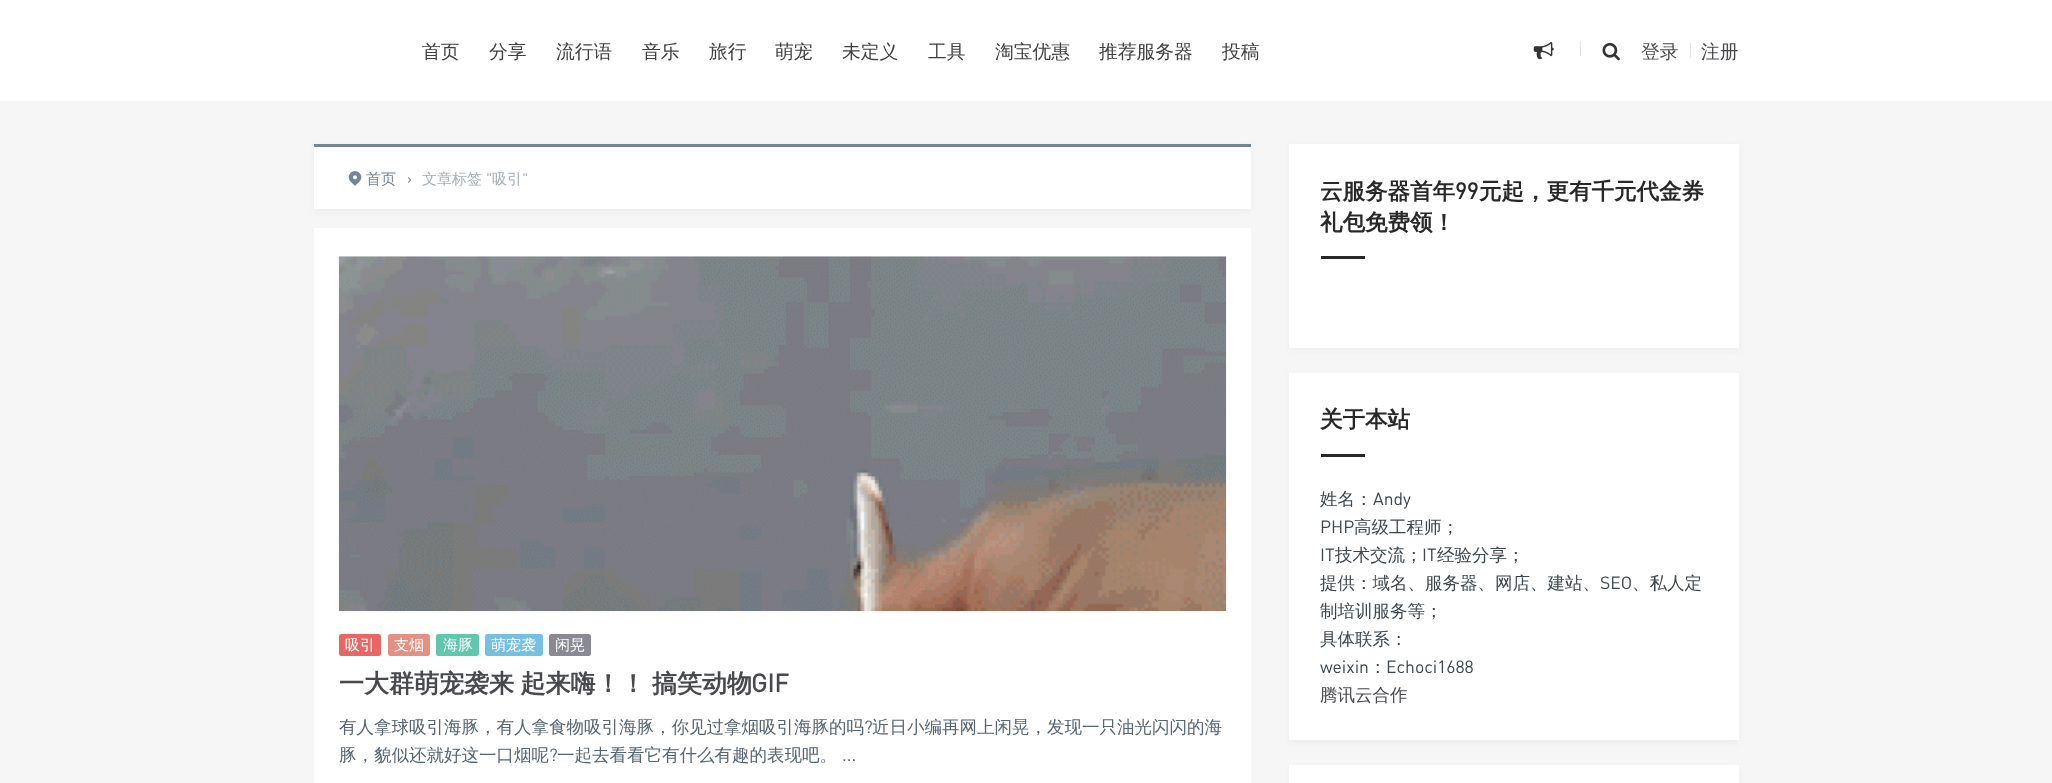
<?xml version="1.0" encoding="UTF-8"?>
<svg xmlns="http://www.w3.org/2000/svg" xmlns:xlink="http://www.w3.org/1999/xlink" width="2052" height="783">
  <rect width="100%" height="100%" fill="#f6f6f6" />
  <rect width="2052" height="101" fill="#ffffff" />
  <image x="1533" y="42" width="21" height="18" xlink:href="image1.png" />
  <rect x="1580" y="41" width="1" height="15" fill="#e5e5e5" />
  <image x="1602" y="42" width="18" height="19" xlink:href="image2.png" />
  <rect x="1690" y="43" width="1" height="15" fill="#e5e5e5" />
  <rect x="314" y="146" width="937" height="65" fill="#929292" fill-opacity="0.1" filter="blur(3px)" />
  <rect x="314" y="147" width="937" height="62" fill="#ffffff" />
  <rect x="314" y="144" width="937" height="3" fill="#748594" />
  <image x="348" y="171" width="14" height="15" xlink:href="image3.png" />
  <rect x="314" y="228" width="937" height="555" fill="#ffffff" />
  <image x="338" y="256" width="889" height="356" xlink:href="image4.png" />
  <rect x="339" y="634" width="42" height="22" rx="2.5" fill="#e86664" />
  <rect x="388" y="634" width="42" height="22" rx="2.5" fill="#e49184" />
  <rect x="436" y="634" width="43" height="22" rx="2.5" fill="#5fc7ab" />
  <rect x="485" y="634" width="58" height="22" rx="2.5" fill="#74bfe2" />
  <rect x="549" y="634" width="42" height="22" rx="2.5" fill="#898a94" />
  <rect x="1289" y="146" width="450" height="204" fill="#929292" fill-opacity="0.1" filter="blur(3px)" />
  <rect x="1289" y="144" width="450" height="204" fill="#ffffff" />
  <rect x="1321" y="256" width="44" height="3" fill="#282828" />
  <rect x="1289" y="375" width="450" height="368" fill="#929292" fill-opacity="0.1" filter="blur(3px)" />
  <rect x="1289" y="373" width="450" height="367" fill="#ffffff" />
  <rect x="1321" y="454" width="44" height="3" fill="#282828" />
  <rect x="1289" y="768" width="450" height="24" fill="#929292" fill-opacity="0.1" filter="blur(3px)" />
  <rect x="1289" y="765" width="450" height="18" fill="#ffffff" />
  <text x="422" y="58" style="font-family: WenQuanYi Zen Hei; font-size: 18.75px; font-weight: 500; fill: #404040">首页</text>
  <text x="489" y="58" style="font-family: WenQuanYi Zen Hei; font-size: 18.75px; font-weight: 500; fill: #404040">分享</text>
  <text x="556" y="58" style="font-family: WenQuanYi Zen Hei; font-size: 18.75px; font-weight: 500; fill: #404040">流行语</text>
  <text x="642" y="58" style="font-family: WenQuanYi Zen Hei; font-size: 18.75px; font-weight: 500; fill: #404040">音乐</text>
  <text x="709" y="58" style="font-family: WenQuanYi Zen Hei; font-size: 18.75px; font-weight: 500; fill: #404040">旅行</text>
  <text x="775" y="58" style="font-family: WenQuanYi Zen Hei; font-size: 18.75px; font-weight: 500; fill: #404040">萌宠</text>
  <text x="842" y="58" style="font-family: WenQuanYi Zen Hei; font-size: 18.75px; font-weight: 500; fill: #404040">未定义</text>
  <text x="928" y="58" style="font-family: WenQuanYi Zen Hei; font-size: 18.75px; font-weight: 500; fill: #404040">工具</text>
  <text x="995" y="58" style="font-family: WenQuanYi Zen Hei; font-size: 18.75px; font-weight: 500; fill: #404040">淘宝优惠</text>
  <text x="1099" y="58" style="font-family: WenQuanYi Zen Hei; font-size: 18.75px; font-weight: 500; fill: #404040">推荐服务器</text>
  <text x="1222" y="58" style="font-family: WenQuanYi Zen Hei; font-size: 18.75px; font-weight: 500; fill: #404040">投稿</text>
  <text x="1641" y="58" style="font-family: WenQuanYi Zen Hei; font-size: 18.75px; font-weight: 500; fill: #48494d">登录</text>
  <text x="1701" y="58" style="font-family: WenQuanYi Zen Hei; font-size: 18.75px; font-weight: 500; fill: #48494d">注册</text>
  <text x="366" y="184" style="font-family: WenQuanYi Zen Hei; font-size: 15px; font-weight: 500; fill: #748594">首页</text>
  <text x="422" y="184" style="font-family: WenQuanYi Zen Hei; font-size: 15px; font-weight: 500; fill: #a5aeb5">文章标签</text>
  <text x="486" y="184" style="font-family: DIN; font-size: 15px; fill: #a5aeb5">"</text>
  <text x="492" y="184" style="font-family: WenQuanYi Zen Hei; font-size: 15px; font-weight: 500; fill: #a5aeb5">吸引</text>
  <text x="522" y="184" style="font-family: DIN; font-size: 15px; fill: #a5aeb5">"</text>
  <text x="407" y="184" style="font-family: DIN; font-size: 15px; fill: #748594">›</text>
  <text x="345" y="650" style="font-family: WenQuanYi Zen Hei; font-size: 15px; font-weight: 500; fill: #ffffff">吸引</text>
  <text x="394" y="650" style="font-family: WenQuanYi Zen Hei; font-size: 15px; font-weight: 500; fill: #ffffff">支烟</text>
  <text x="443" y="650" style="font-family: WenQuanYi Zen Hei; font-size: 15px; font-weight: 500; fill: #ffffff">海豚</text>
  <text x="491" y="650" style="font-family: WenQuanYi Zen Hei; font-size: 15px; font-weight: 500; fill: #ffffff">萌宠袭</text>
  <text x="555" y="650" style="font-family: WenQuanYi Zen Hei; font-size: 15px; font-weight: 500; fill: #ffffff">闲晃</text>
  <text x="339" y="692" word-spacing="-1" style="font-family: WenQuanYi Zen Hei; font-size: 25px; font-weight: bold; fill: #48494d">一大群萌宠袭来 起来嗨！！ 搞笑动物</text>
  <text x="751" y="692" style="font-family: DIN; font-size: 25px; font-weight: bold; fill: #48494d">GIF</text>
  <text x="339" y="733" style="font-family: WenQuanYi Zen Hei; font-size: 17.5px; font-weight: 500; fill: #566573">有人拿球吸引海豚，有人拿食物吸引海豚，你见过拿烟吸引海豚的吗</text>
  <text x="864" y="733" style="font-family: DIN; font-size: 17.5px; fill: #566573">?</text>
  <text x="872" y="733" style="font-family: WenQuanYi Zen Hei; font-size: 17.5px; font-weight: 500; fill: #566573">近日小编再网上闲晃，发现一只油光闪闪的海</text>
  <text x="339" y="761" style="font-family: WenQuanYi Zen Hei; font-size: 17.5px; font-weight: 500; fill: #566573">豚，貌似还就好这一口烟呢</text>
  <text x="549" y="761" style="font-family: DIN; font-size: 17.5px; fill: #566573">?</text>
  <text x="557" y="761" style="font-family: WenQuanYi Zen Hei; font-size: 17.5px; font-weight: 500; fill: #566573">一起去看看它有什么有趣的表现吧。</text>
  <text x="842" y="761" style="font-family: DIN; font-size: 17.5px; fill: #566573">...</text>
  <text x="1320" y="199" style="font-family: WenQuanYi Zen Hei; font-size: 22.5px; font-weight: bold; fill: #282828">云服务器首年</text>
  <text x="1455" y="199" style="font-family: DIN; font-size: 22.5px; font-weight: bold; fill: #282828">99</text>
  <text x="1479" y="199" style="font-family: WenQuanYi Zen Hei; font-size: 22.5px; font-weight: bold; fill: #282828">元起，更有千元代金券</text>
  <text x="1320" y="230" style="font-family: WenQuanYi Zen Hei; font-size: 22.5px; font-weight: bold; fill: #282828">礼包免费领！</text>
  <text x="1320" y="427" style="font-family: WenQuanYi Zen Hei; font-size: 22.5px; font-weight: bold; fill: #282828">关于本站</text>
  <text x="1320" y="505" style="font-family: WenQuanYi Zen Hei; font-size: 17.5px; font-weight: 500; fill: #3d464d">姓名：</text>
  <text x="1373" y="505" style="font-family: DIN; font-size: 17.5px; fill: #3d464d">Andy</text>
  <text x="1320" y="533" style="font-family: DIN; font-size: 17.5px; fill: #3d464d">PHP</text>
  <text x="1354" y="533" style="font-family: WenQuanYi Zen Hei; font-size: 17.5px; font-weight: 500; fill: #3d464d">高级工程师；</text>
  <text x="1320" y="561" style="font-family: DIN; font-size: 17.5px; fill: #3d464d">IT</text>
  <text x="1335" y="561" style="font-family: WenQuanYi Zen Hei; font-size: 17.5px; font-weight: 500; fill: #3d464d">技术交流；</text>
  <text x="1422" y="561" style="font-family: DIN; font-size: 17.5px; fill: #3d464d">IT</text>
  <text x="1437" y="561" style="font-family: WenQuanYi Zen Hei; font-size: 17.5px; font-weight: 500; fill: #3d464d">经验分享；</text>
  <text x="1320" y="589" style="font-family: WenQuanYi Zen Hei; font-size: 17.5px; font-weight: 500; fill: #3d464d">提供：域名、服务器、网店、建站、</text>
  <text x="1600" y="589" style="font-family: DIN; font-size: 17.5px; fill: #3d464d">SEO</text>
  <text x="1632" y="589" style="font-family: WenQuanYi Zen Hei; font-size: 17.5px; font-weight: 500; fill: #3d464d">、私人定</text>
  <text x="1320" y="617" style="font-family: WenQuanYi Zen Hei; font-size: 17.5px; font-weight: 500; fill: #3d464d">制培训服务等；</text>
  <text x="1320" y="645" style="font-family: WenQuanYi Zen Hei; font-size: 17.5px; font-weight: 500; fill: #3d464d">具体联系：</text>
  <text x="1320" y="673" style="font-family: DIN; font-size: 17.5px; fill: #3d464d">weixin</text>
  <text x="1369" y="673" style="font-family: WenQuanYi Zen Hei; font-size: 17.5px; font-weight: 500; fill: #3d464d">：</text>
  <text x="1386" y="673" style="font-family: DIN; font-size: 17.5px; fill: #3d464d">Echoci1688</text>
  <text x="1320" y="701" style="font-family: WenQuanYi Zen Hei; font-size: 17.5px; font-weight: 500; fill: #48494d">腾讯云合作</text>
</svg>
